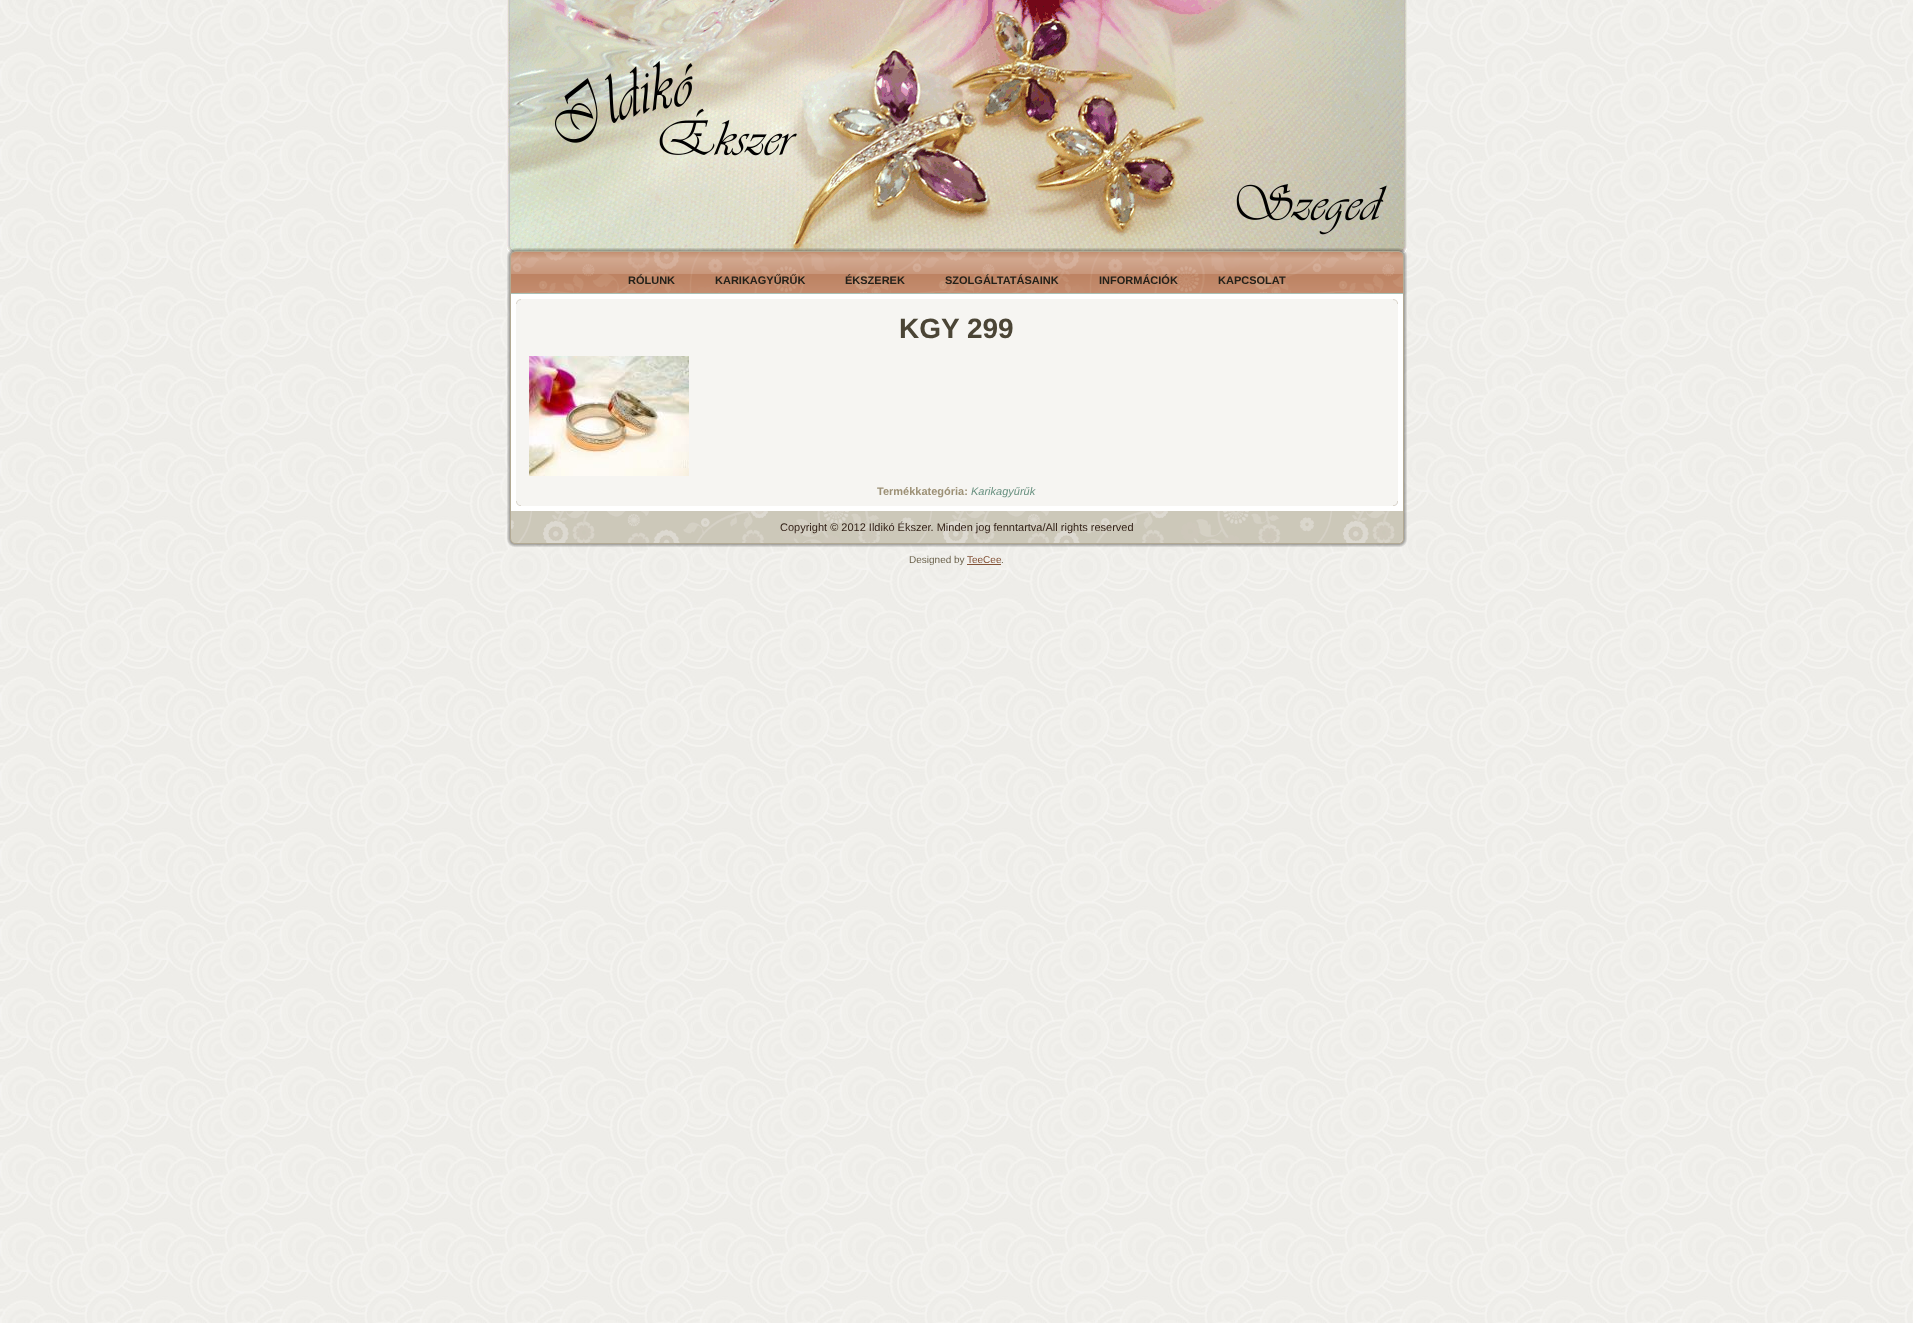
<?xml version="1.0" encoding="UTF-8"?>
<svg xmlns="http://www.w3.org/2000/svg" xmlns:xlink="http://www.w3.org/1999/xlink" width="1913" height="1323">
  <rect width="100%" height="100%" fill="#ffffff" />
  <image x="0" y="0" width="1913" height="1323" xlink:href="image1.png" />
  <image x="507" y="0" width="900" height="254" xlink:href="image2.png" />
  <image x="555" y="61" width="832" height="174" xlink:href="image3.png" />
  <image x="507" y="248" width="18" height="18" xlink:href="image4.png" />
  <image x="525" y="248" width="864" height="4" xlink:href="image5.png" />
  <image x="1389" y="248" width="18" height="18" xlink:href="image6.png" />
  <image x="507" y="266" width="18" height="263" xlink:href="image7.png" />
  <image x="1389" y="266" width="18" height="263" xlink:href="image19.png" />
  <image x="511" y="252" width="887" height="42" xlink:href="image8.png" />
  <image x="1398" y="252" width="5" height="42" xlink:href="image9.png" />
  <image x="516" y="299" width="5" height="5" xlink:href="image10.png" />
  <rect x="525" y="294" width="864" height="217" fill="#ffffff" />
  <rect x="521" y="299" width="872" height="5" fill="#f6f5f2" />
  <image x="1393" y="299" width="5" height="5" xlink:href="image11.png" />
  <rect x="516" y="304" width="5" height="197" fill="#f6f5f2" />
  <rect x="521" y="304" width="877" height="197" fill="#f6f5f2" />
  <image x="529" y="356" width="160" height="120" xlink:href="image12.png" />
  <image x="516" y="501" width="5" height="5" xlink:href="image13.png" />
  <rect x="521" y="501" width="872" height="5" fill="#f6f5f2" />
  <image x="1393" y="501" width="5" height="5" xlink:href="image14.png" />
  <image x="507" y="529" width="18" height="18" xlink:href="image20.png" />
  <image x="1389" y="529" width="18" height="18" xlink:href="image22.png" />
  <image x="511" y="511" width="892" height="27" xlink:href="image15.png" />
  <image x="511" y="538" width="5" height="5" xlink:href="image16.png" />
  <image x="516" y="538" width="882" height="5" xlink:href="image17.png" />
  <image x="1398" y="538" width="5" height="5" xlink:href="image18.png" />
  <image x="525" y="543" width="864" height="4" xlink:href="image21.png" />
  <rect x="967" y="564" width="34" height="1" fill="#835236" />
  <text x="628" y="284" style="font-family: Liberation Sans; font-size: 11px; font-weight: bold; fill: #24211a">RÓLUNK</text>
  <text x="715" y="284" style="font-family: Liberation Sans; font-size: 11px; font-weight: bold; fill: #24211a">KARIKAGYŰRŰK</text>
  <text x="845" y="284" style="font-family: Liberation Sans; font-size: 11px; font-weight: bold; fill: #24211a">ÉKSZEREK</text>
  <text x="945" y="284" style="font-family: Liberation Sans; font-size: 11px; font-weight: bold; fill: #24211a">SZOLGÁLTATÁSAINK</text>
  <text x="1099" y="284" style="font-family: Liberation Sans; font-size: 11px; font-weight: bold; fill: #24211a">INFORMÁCIÓK</text>
  <text x="1218" y="284" style="font-family: Liberation Sans; font-size: 11px; font-weight: bold; fill: #24211a">KAPCSOLAT</text>
  <text x="899" y="338" style="font-family: Liberation Sans; font-size: 28px; font-weight: bold; fill: #4b4536">KGY 299</text>
  <text x="877" y="495" style="font-family: Liberation Sans; font-size: 11px; font-weight: bold; fill: #9d9176">Termékkategória:</text>
  <text x="971" y="495" style="font-family: Liberation Sans; font-size: 11px; font-style: italic; fill: #67907f">Karikagyűrűk</text>
  <text x="780" y="531" style="font-family: Liberation Sans; font-size: 11px; fill: #301e14">Copyright © 2012 Ildikó Ékszer. Minden jog fenntartva/All rights reserved</text>
  <text x="909" y="563" style="font-family: Liberation Sans; font-size: 10px; fill: #6c634d">Designed by</text>
  <text x="967" y="563" style="font-family: Liberation Sans; font-size: 10px; fill: #835236">TeeCee</text>
  <text x="1001" y="563" style="font-family: Liberation Sans; font-size: 10px; fill: #6c634d">.</text>
</svg>
